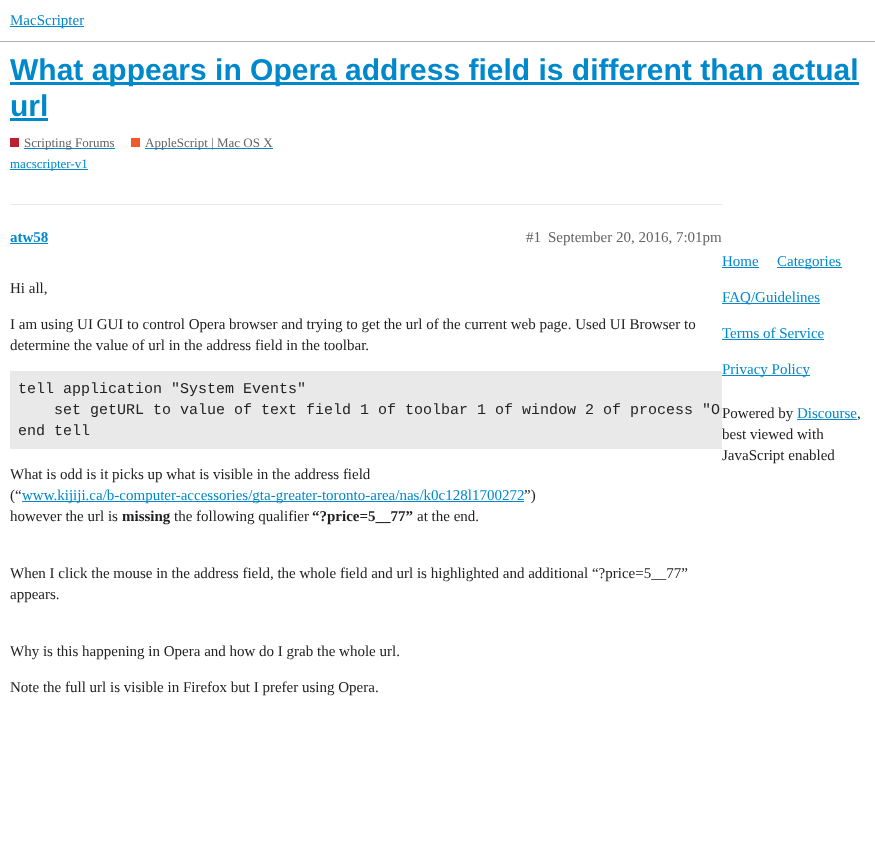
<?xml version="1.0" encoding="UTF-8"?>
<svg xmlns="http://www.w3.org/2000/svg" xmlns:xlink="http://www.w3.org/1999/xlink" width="875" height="856">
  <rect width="100%" height="100%" fill="#ffffff" />
  <rect y="41" width="875" height="1" fill="#afafaf" />
  <rect x="10" y="26" width="74" height="1" fill="#0088cc" />
  <rect x="10" y="82" width="849" height="3" fill="#0088cc" />
  <rect x="10" y="118" width="38" height="3" fill="#0088cc" />
  <rect x="10" y="138" width="9" height="9" fill="#bf1e2e" />
  <rect x="24" y="148" width="91" height="1" fill="#0088cc" />
  <rect x="131" y="138" width="9" height="9" fill="#f1592a" />
  <rect x="145" y="148" width="128" height="1" fill="#0088cc" />
  <rect x="10" y="169" width="78" height="1" fill="#0088cc" />
  <rect x="10" y="204" width="712" height="1" fill="#e9e9e9" />
  <rect x="10" y="243" width="38" height="1" fill="#0088cc" />
  <rect x="10" y="371" width="712" height="78" fill="#e9e9e9" />
  <rect x="22" y="501" width="502" height="1" fill="#0088cc" />
  <rect x="722" y="267" width="37" height="1" fill="#0088cc" />
  <rect x="777" y="267" width="65" height="1" fill="#0088cc" />
  <rect x="722" y="303" width="98" height="1" fill="#0088cc" />
  <rect x="722" y="339" width="102" height="1" fill="#0088cc" />
  <rect x="722" y="375" width="88" height="1" fill="#0088cc" />
  <rect x="797" y="419" width="60" height="1" fill="#0088cc" />
  <text x="10" y="25" style="font-family: Liberation Serif; font-size: 15px; fill: #0088cc">MacScripter</text>
  <text x="10" y="80" style="font-family: Liberation Sans; font-size: 30px; font-weight: bold; fill: #0088cc">What appears in Opera address field is different than actual</text>
  <text x="10" y="116" style="font-family: Liberation Sans; font-size: 30px; font-weight: bold; fill: #0088cc">url</text>
  <text x="24" y="147" style="font-family: Liberation Serif; font-size: 13px; fill: #646464">Scripting Forums</text>
  <text x="145" y="147" style="font-family: Liberation Serif; font-size: 13px; fill: #646464">AppleScript | Mac OS X</text>
  <text x="10" y="168" style="font-family: Liberation Serif; font-size: 13px; fill: #0088cc">macscripter-v1</text>
  <text x="10" y="242" style="font-family: Liberation Serif; font-size: 15px; font-weight: bold; fill: #0088cc">atw58</text>
  <text x="526" y="242" style="font-family: Liberation Serif; font-size: 15px; fill: #646464">#1</text>
  <text x="548" y="242" style="font-family: Liberation Serif; font-size: 15px; fill: #646464">September 20, 2016, 7:01pm</text>
  <text x="10" y="293" style="font-family: Liberation Serif; font-size: 15px; fill: #222222">Hi all,</text>
  <text x="10" y="329" style="font-family: Liberation Serif; font-size: 15px; fill: #222222">I am using UI GUI to control Opera browser and trying to get the url of the current web page. Used UI Browser to</text>
  <text x="10" y="350" style="font-family: Liberation Serif; font-size: 15px; fill: #222222">determine the value of url in the address field in the toolbar.</text>
  <text x="18" y="393" style="font-family: Liberation Mono; font-size: 15px; fill: #222222">tell application "System Events"</text>
  <text x="54" y="414" style="font-family: Liberation Mono; font-size: 15px; fill: #222222">set getURL to value of text field 1 of toolbar 1 of window 2 of process "O</text>
  <text x="18" y="435" style="font-family: Liberation Mono; font-size: 15px; fill: #222222">end tell</text>
  <text x="10" y="479" style="font-family: Liberation Serif; font-size: 15px; fill: #222222">What is odd is it picks up what is visible in the address field</text>
  <text x="10" y="500" style="font-family: Liberation Serif; font-size: 15px; fill: #222222">(“</text>
  <text x="22" y="500" style="font-family: Liberation Serif; font-size: 15px; fill: #0088cc">www.kijiji.ca/b-computer-accessories/gta-greater-toronto-area/nas/k0c128l1700272</text>
  <text x="524" y="500" style="font-family: Liberation Serif; font-size: 15px; fill: #222222">”)</text>
  <text x="10" y="521" style="font-family: Liberation Serif; font-size: 15px; fill: #222222">however the url is</text>
  <text x="122" y="521" style="font-family: Liberation Serif; font-size: 15px; font-weight: bold; fill: #222222">missing</text>
  <text x="174" y="521" style="font-family: Liberation Serif; font-size: 15px; fill: #222222">the following qualifier</text>
  <text x="312" y="521" style="font-family: Liberation Serif; font-size: 15px; font-weight: bold; fill: #222222">“?price=5__77”</text>
  <text x="417" y="521" style="font-family: Liberation Serif; font-size: 15px; fill: #222222">at the end.</text>
  <text x="10" y="578" style="font-family: Liberation Serif; font-size: 15px; fill: #222222">When I click the mouse in the address field, the whole field and url is highlighted and additional “?price=5__77”</text>
  <text x="10" y="599" style="font-family: Liberation Serif; font-size: 15px; fill: #222222">appears.</text>
  <text x="10" y="656" style="font-family: Liberation Serif; font-size: 15px; fill: #222222">Why is this happening in Opera and how do I grab the whole url.</text>
  <text x="10" y="692" style="font-family: Liberation Serif; font-size: 15px; fill: #222222">Note the full url is visible in Firefox but I prefer using Opera.</text>
  <text x="722" y="266" style="font-family: Liberation Serif; font-size: 15px; fill: #0088cc">Home</text>
  <text x="777" y="266" style="font-family: Liberation Serif; font-size: 15px; fill: #0088cc">Categories</text>
  <text x="722" y="302" style="font-family: Liberation Serif; font-size: 15px; fill: #0088cc">FAQ/Guidelines</text>
  <text x="722" y="338" style="font-family: Liberation Serif; font-size: 15px; fill: #0088cc">Terms of Service</text>
  <text x="722" y="374" style="font-family: Liberation Serif; font-size: 15px; fill: #0088cc">Privacy Policy</text>
  <text x="722" y="418" style="font-family: Liberation Serif; font-size: 15px; fill: #222222">Powered by</text>
  <text x="797" y="418" style="font-family: Liberation Serif; font-size: 15px; fill: #0088cc">Discourse</text>
  <text x="857" y="418" style="font-family: Liberation Serif; font-size: 15px; fill: #222222">,</text>
  <text x="722" y="439" style="font-family: Liberation Serif; font-size: 15px; fill: #222222">best viewed with</text>
  <text x="722" y="460" style="font-family: Liberation Serif; font-size: 15px; fill: #222222">JavaScript enabled</text>
</svg>
